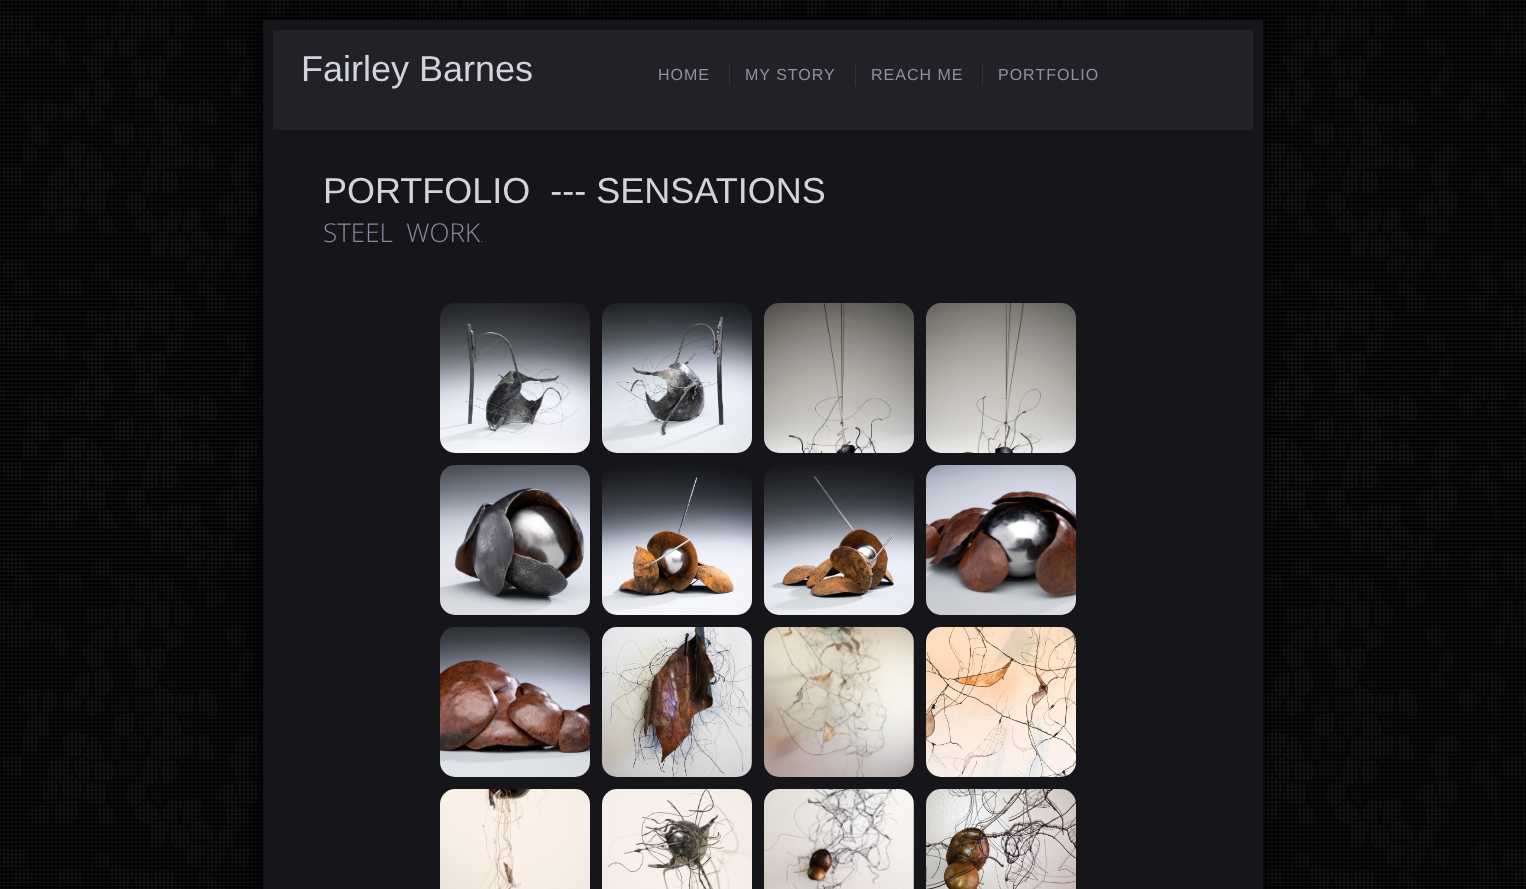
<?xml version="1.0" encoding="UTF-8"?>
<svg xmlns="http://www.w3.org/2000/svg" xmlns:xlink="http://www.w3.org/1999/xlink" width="1526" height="889">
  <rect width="100%" height="100%" fill="#ffffff" />
  <image x="0" y="0" width="1526" height="889" xlink:href="image1.png" />
  <rect x="263" y="20" width="1000" height="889" fill="#000000" filter="blur(6.5px)" />
  <rect x="263" y="20" width="1000" height="869" fill="#16161a" />
  <rect x="273" y="30" width="980" height="100" fill="#212127" />
  <rect x="729" y="64" width="1" height="22" fill="#31313a" />
  <rect x="855" y="64" width="1" height="22" fill="#31313a" />
  <rect x="982" y="64" width="1" height="22" fill="#31313a" />
  <image x="440" y="303" width="150" height="150" xlink:href="image2.png" />
  <image x="602" y="303" width="150" height="150" xlink:href="image3.png" />
  <image x="764" y="303" width="150" height="150" xlink:href="image4.png" />
  <image x="926" y="303" width="150" height="150" xlink:href="image5.png" />
  <image x="440" y="465" width="150" height="150" xlink:href="image6.png" />
  <image x="602" y="465" width="150" height="150" xlink:href="image7.png" />
  <image x="764" y="465" width="150" height="150" xlink:href="image8.png" />
  <image x="926" y="465" width="150" height="150" xlink:href="image9.png" />
  <image x="440" y="627" width="150" height="150" xlink:href="image10.png" />
  <image x="602" y="627" width="150" height="150" xlink:href="image11.png" />
  <image x="764" y="627" width="150" height="150" xlink:href="image12.png" />
  <image x="926" y="627" width="150" height="150" xlink:href="image13.png" />
  <image x="440" y="789" width="150" height="100" xlink:href="image14.png" />
  <image x="602" y="789" width="150" height="100" xlink:href="image15.png" />
  <image x="764" y="789" width="150" height="100" xlink:href="image16.png" />
  <image x="926" y="789" width="150" height="100" xlink:href="image17.png" />
  <text x="301" y="81" style="font-family: Liberation Sans; font-size: 36px; fill: #d2d4db">Fairley Barnes</text>
  <text x="658" y="80" style="font-family: Liberation Sans; font-size: 16px; letter-spacing: 1px; fill: #91919b">HOME</text>
  <text x="745" y="80" style="font-family: Liberation Sans; font-size: 16px; letter-spacing: 1px; fill: #91919b">MY STORY</text>
  <text x="871" y="80" style="font-family: Liberation Sans; font-size: 16px; letter-spacing: 1px; fill: #91919b">REACH ME</text>
  <text x="998" y="80" style="font-family: Liberation Sans; font-size: 16px; letter-spacing: 1px; fill: #91919b">PORTFOLIO</text>
  <text x="323" y="203" style="font-family: Liberation Sans; font-size: 36px; fill: #d2d4db" xml:space="preserve">PORTFOLIO  --- SENSATIONS</text>
  <text x="323" y="242" style="font-family: Open Sans; font-size: 26px; font-weight: 300; fill: #8989a0" xml:space="preserve">STEEL  WORK</text>
  <text x="480" y="242" style="font-family: Open Sans; font-size: 14px; font-weight: 300; fill: #6f6f7f">.</text>
</svg>
